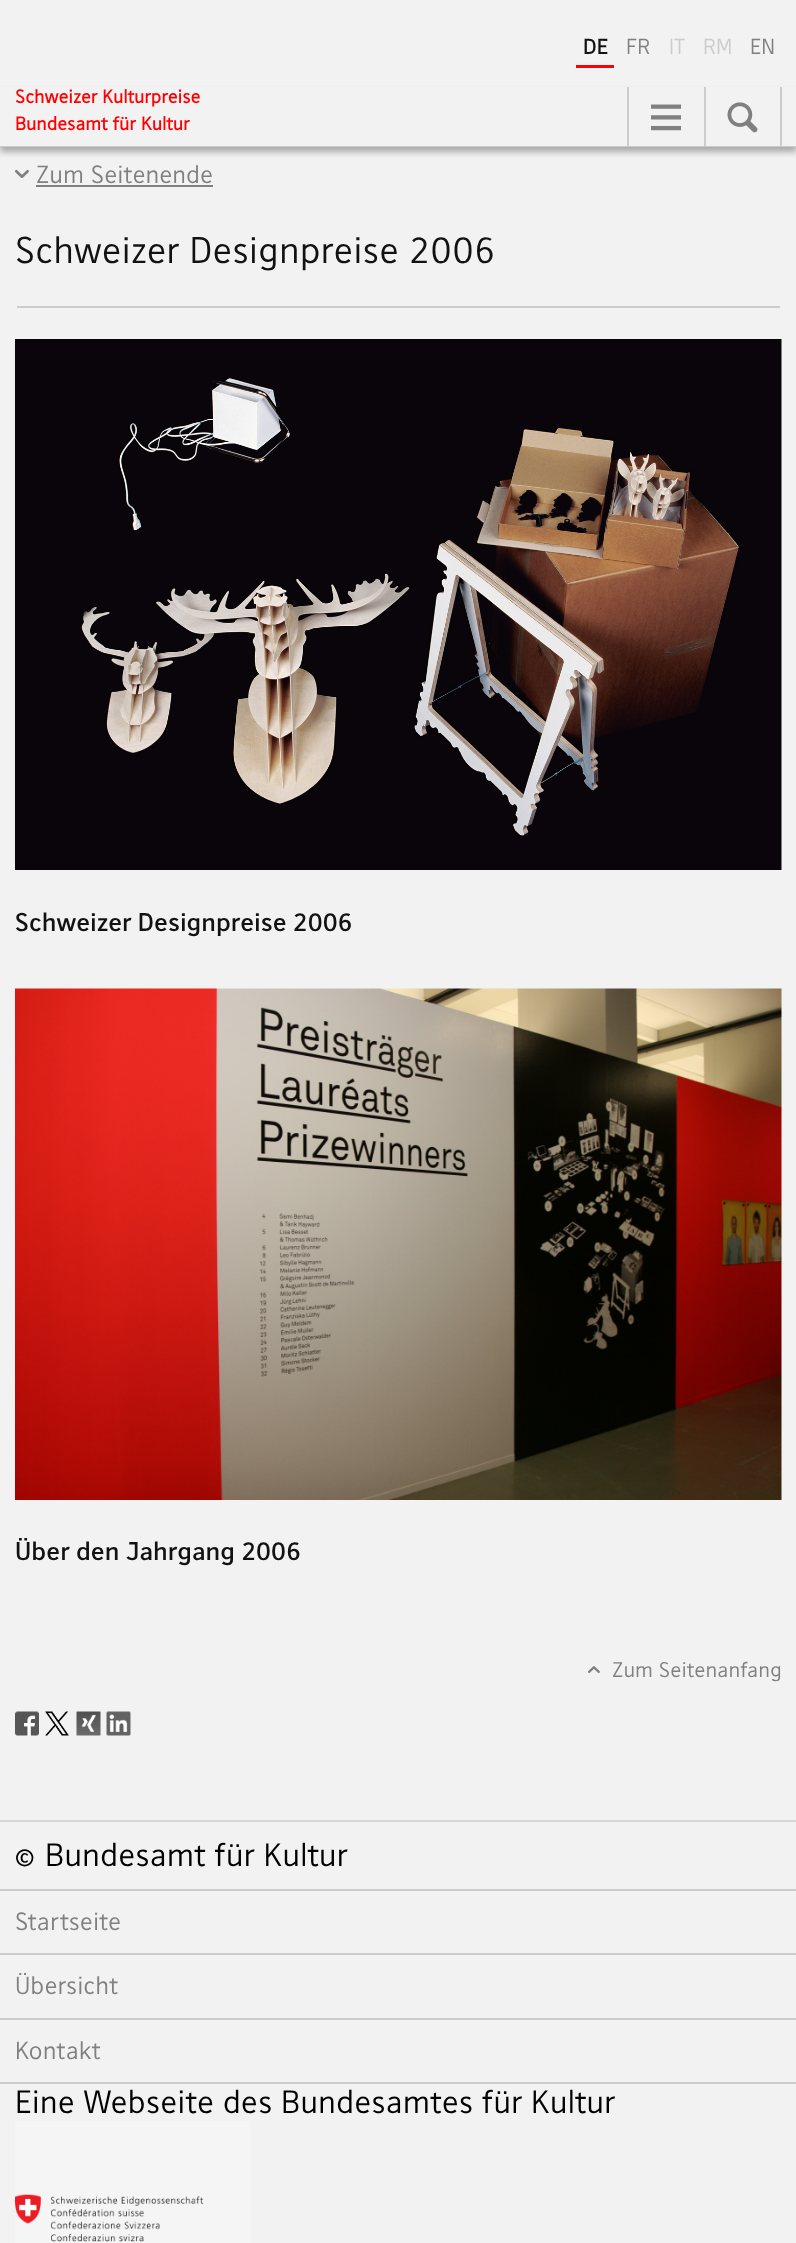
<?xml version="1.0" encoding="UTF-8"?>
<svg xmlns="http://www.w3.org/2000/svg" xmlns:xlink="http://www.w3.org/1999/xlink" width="796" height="2243">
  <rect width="100%" height="100%" fill="#f2f2f2" />
  <rect x="576" y="65" width="38" height="3" fill="#ff0000" />
  <rect y="92" width="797" height="60" fill="#000000" fill-opacity="0.3" filter="blur(3px)" />
  <rect y="146" width="796" height="1" fill="#cccccc" />
  <rect y="87" width="796" height="59" fill="#f2f2f2" />
  <rect x="627" y="87" width="2" height="59" fill="#cccccc" />
  <image x="651" y="104" width="30" height="27" xlink:href="image1.png" />
  <rect x="704" y="87" width="2" height="59" fill="#cccccc" />
  <rect x="780" y="87" width="2" height="59" fill="#cccccc" />
  <image x="727" y="102" width="31" height="31" xlink:href="image2.png" />
  <image x="15" y="169" width="14" height="9" xlink:href="image3.png" />
  <rect x="36" y="185" width="177" height="2" fill="#808080" />
  <rect x="17" y="306" width="763" height="2" fill="#cccccc" />
  <image x="15" y="339" width="767" height="531" xlink:href="image4.png" />
  <image x="15" y="988" width="767" height="512" xlink:href="image5.png" />
  <image x="588" y="1666" width="12" height="7" xlink:href="image6.png" />
  <image x="15" y="1711" width="24" height="25" xlink:href="image7.png" />
  <image x="45" y="1711" width="24" height="25" xlink:href="image8.png" />
  <image x="76" y="1711" width="25" height="25" xlink:href="image9.png" />
  <image x="106" y="1711" width="25" height="25" xlink:href="image10.png" />
  <rect y="1820" width="796" height="2" fill="#d5d5d5" />
  <rect y="2082" width="796" height="2" fill="#cccccc" />
  <rect y="1889" width="796" height="2" fill="#cccccc" />
  <rect y="1953" width="796" height="2" fill="#cccccc" />
  <rect y="2018" width="796" height="2" fill="#cccccc" />
  <rect x="15" y="2121" width="236" height="122" fill="#f5f5f5" />
  <image x="15" y="2194" width="189" height="48" xlink:href="image11.png" />
  <text x="583" y="54" style="font-family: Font; font-size: 21px; font-weight: bold; fill: #121212">DE</text>
  <text x="626" y="54" style="font-family: Font; font-size: 21px; fill: #808080">FR</text>
  <text x="669" y="54" style="font-family: Font; font-size: 21px; fill: #cccccc">IT</text>
  <text x="703" y="54" style="font-family: Font; font-size: 21px; fill: #cccccc">RM</text>
  <text x="750" y="54" style="font-family: Font; font-size: 21px; fill: #808080">EN</text>
  <text x="15" y="103" style="font-family: 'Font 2'; font-size: 18px; font-weight: bold; fill: #ff0000">Schweizer Kulturpreise</text>
  <text x="15" y="130" style="font-family: 'Font 2'; font-size: 18px; font-weight: bold; fill: #ff0000">Bundesamt für Kultur</text>
  <text x="36" y="183" style="font-family: Font; font-size: 24px; fill: #808080">Zum Seitenende</text>
  <text x="15" y="263" style="font-family: Font; font-size: 36px; fill: #121212">Schweizer Designpreise 2006</text>
  <text x="15" y="931" style="font-family: Font; font-size: 24.75px; font-weight: bold; fill: #121212">Schweizer Designpreise 2006</text>
  <text x="15" y="1560" style="font-family: Font; font-size: 24.75px; font-weight: bold; fill: #121212">Über den Jahrgang 2006</text>
  <text x="612" y="1677" style="font-family: Font; font-size: 20.5px; fill: #808080">Zum Seitenanfang</text>
  <text x="15" y="1866" style="font-family: Font; font-size: 31.25px; fill: #000000">© Bundesamt für Kultur</text>
  <text x="15" y="1930" style="font-family: Font; font-size: 24px; fill: #808080">Startseite</text>
  <text x="15" y="1994" style="font-family: Font; font-size: 24px; fill: #808080">Übersicht</text>
  <text x="15" y="2059" style="font-family: Font; font-size: 24px; fill: #808080">Kontakt</text>
  <text x="15" y="2113" style="font-family: Font; font-size: 31.25px; fill: #000000">Eine Webseite des Bundesamtes für Kultur</text>
</svg>
